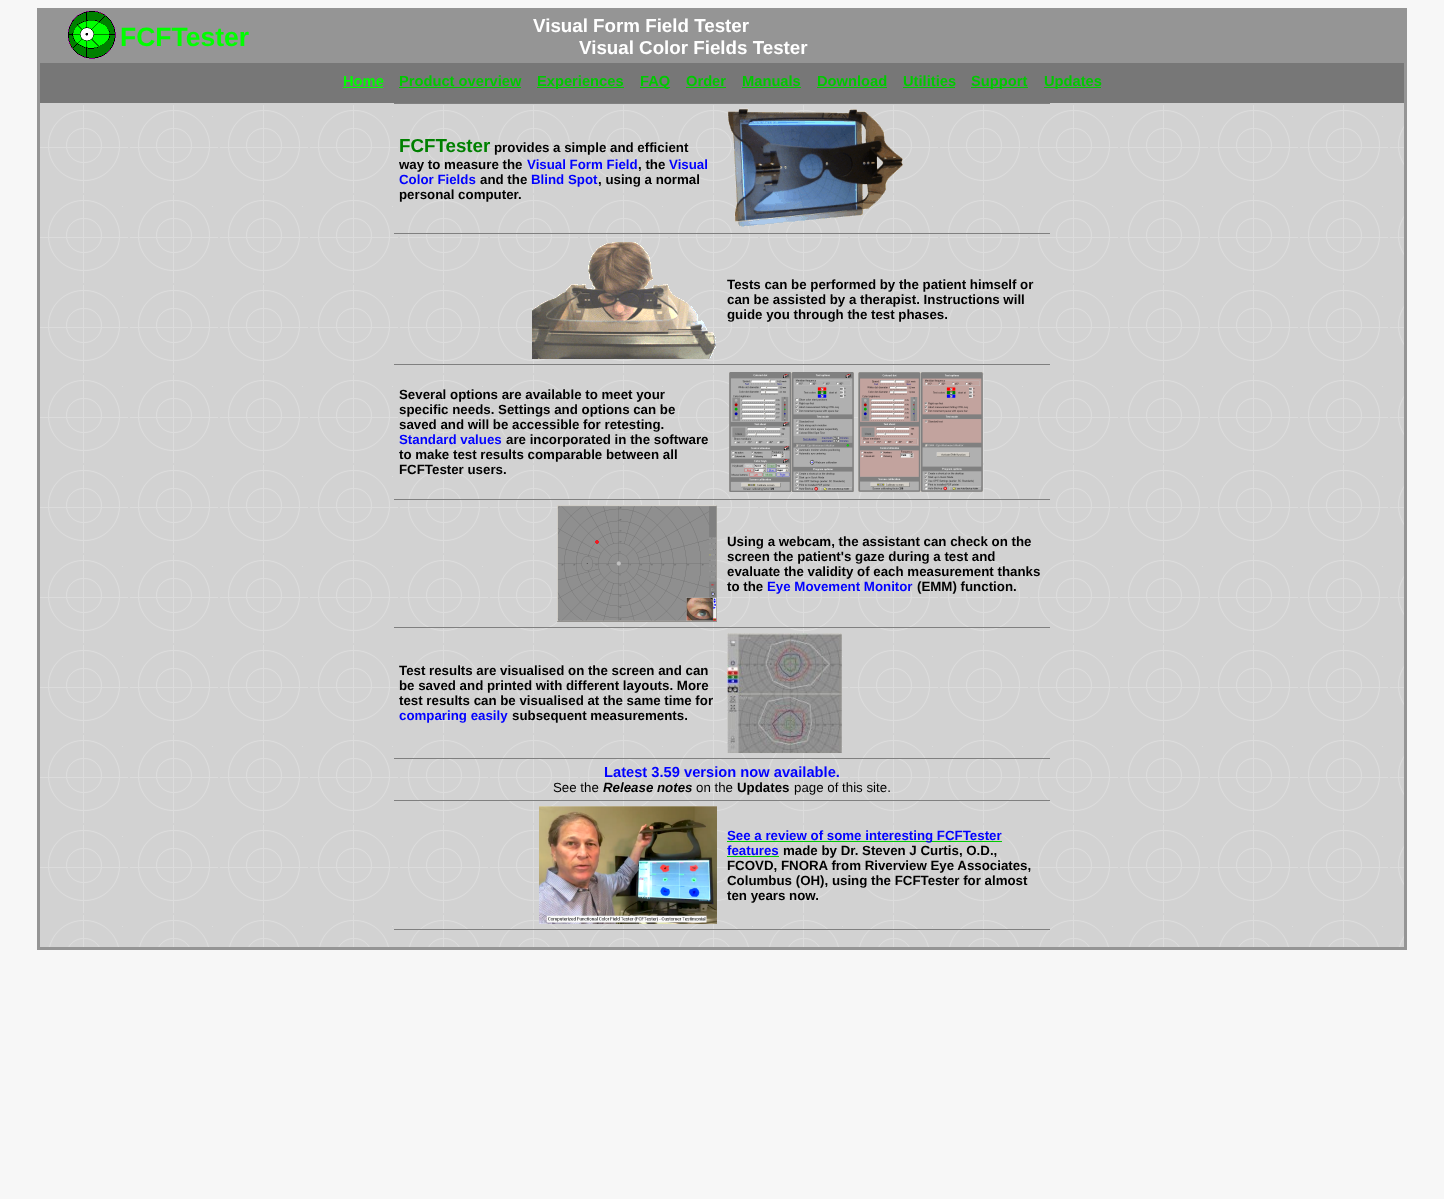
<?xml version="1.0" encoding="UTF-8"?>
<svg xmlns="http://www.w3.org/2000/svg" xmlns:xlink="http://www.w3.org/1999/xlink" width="1444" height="1199">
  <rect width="100%" height="100%" fill="#f7f7f7" />
  <rect x="37" y="8" width="1370" height="942" fill="#959595" />
  <image x="68" y="11" width="48" height="48" xlink:href="image1.png" />
  <rect x="40" y="63" width="1364" height="40" fill="#777777" />
  <rect x="343" y="87" width="40" height="1" fill="#00ff00" />
  <rect x="399" y="87" width="122" height="1" fill="#00ca00" />
  <rect x="537" y="87" width="87" height="1" fill="#00ca00" />
  <rect x="640" y="87" width="30" height="1" fill="#00ca00" />
  <rect x="686" y="87" width="40" height="1" fill="#00ca00" />
  <rect x="742" y="87" width="59" height="1" fill="#00ca00" />
  <rect x="817" y="87" width="70" height="1" fill="#00ca00" />
  <rect x="903" y="87" width="52" height="1" fill="#00ca00" />
  <rect x="971" y="87" width="57" height="1" fill="#00ca00" />
  <rect x="1044" y="87" width="57" height="1" fill="#00ca00" />
  <image x="40" y="103" width="1364" height="844" xlink:href="image2.png" />
  <rect x="394" y="103" width="656" height="1" fill="#808080" />
  <image x="727" y="108" width="176" height="119" xlink:href="image3.png" />
  <image x="532" y="242" width="184" height="117" xlink:href="image4.png" />
  <rect x="394" y="233" width="656" height="1" fill="#808080" />
  <rect x="394" y="364" width="656" height="1" fill="#808080" />
  <image x="729" y="372" width="125" height="120" xlink:href="image5.png" />
  <image x="858" y="372" width="125" height="120" xlink:href="image6.png" />
  <image x="557" y="505" width="160" height="117" xlink:href="image7.png" />
  <rect x="394" y="499" width="656" height="1" fill="#808080" />
  <rect x="394" y="627" width="656" height="1" fill="#808080" />
  <image x="727" y="633" width="115" height="120" xlink:href="image8.png" />
  <rect x="394" y="758" width="656" height="1" fill="#808080" />
  <image x="539" y="806" width="178" height="118" xlink:href="image9.png" />
  <rect x="394" y="800" width="656" height="1" fill="#808080" />
  <rect x="394" y="929" width="656" height="1" fill="#808080" />
  <rect x="727" y="841" width="275" height="1" fill="#00ca00" />
  <rect x="727" y="856" width="52" height="1" fill="#00ca00" />
  <text x="120" y="46" style="font-family: Liberation Sans; font-size: 26.5px; font-weight: bold; fill: #00ff00">FCFTester</text>
  <text x="533" y="32" style="font-family: Liberation Sans; font-size: 18.75px; font-weight: bold; fill: #ffffff">Visual Form Field Tester</text>
  <text x="579" y="54" style="font-family: Liberation Sans; font-size: 18.75px; font-weight: bold; fill: #ffffff">Visual Color Fields Tester</text>
  <text x="343" y="86" style="font-family: Liberation Sans; font-size: 14.7px; font-weight: bold; fill: #00ff00">Home</text>
  <text x="399" y="86" style="font-family: Liberation Sans; font-size: 14.7px; font-weight: bold; fill: #00ca00">Product overview</text>
  <text x="537" y="86" style="font-family: Liberation Sans; font-size: 14.7px; font-weight: bold; fill: #00ca00">Experiences</text>
  <text x="640" y="86" style="font-family: Liberation Sans; font-size: 14.7px; font-weight: bold; fill: #00ca00">FAQ</text>
  <text x="686" y="86" style="font-family: Liberation Sans; font-size: 14.7px; font-weight: bold; fill: #00ca00">Order</text>
  <text x="742" y="86" style="font-family: Liberation Sans; font-size: 14.7px; font-weight: bold; fill: #00ca00">Manuals</text>
  <text x="817" y="86" style="font-family: Liberation Sans; font-size: 14.7px; font-weight: bold; fill: #00ca00">Download</text>
  <text x="903" y="86" style="font-family: Liberation Sans; font-size: 14.7px; font-weight: bold; fill: #00ca00">Utilities</text>
  <text x="971" y="86" style="font-family: Liberation Sans; font-size: 14.7px; font-weight: bold; fill: #00ca00">Support</text>
  <text x="1044" y="86" style="font-family: Liberation Sans; font-size: 14.7px; font-weight: bold; fill: #00ca00">Updates</text>
  <text x="399" y="152" style="font-family: Liberation Sans; font-size: 18.75px; font-weight: bold; fill: #008000">FCFTester</text>
  <text x="494" y="152" style="font-family: Liberation Sans; font-size: 13.3px; font-weight: bold; fill: #000000">provides a simple and efficient</text>
  <text x="399" y="169" style="font-family: Liberation Sans; font-size: 13.3px; font-weight: bold; fill: #000000">way to measure the</text>
  <text x="527" y="169" style="font-family: Liberation Sans; font-size: 13.3px; font-weight: bold; fill: #0000ff">Visual Form Field</text>
  <text x="638" y="169" style="font-family: Liberation Sans; font-size: 13.3px; font-weight: bold; fill: #000000">, the</text>
  <text x="669" y="169" style="font-family: Liberation Sans; font-size: 13.3px; font-weight: bold; fill: #0000ff">Visual</text>
  <text x="399" y="184" style="font-family: Liberation Sans; font-size: 13.3px; font-weight: bold; fill: #0000ff">Color Fields</text>
  <text x="480" y="184" style="font-family: Liberation Sans; font-size: 13.3px; font-weight: bold; fill: #000000">and the</text>
  <text x="531" y="184" style="font-family: Liberation Sans; font-size: 13.3px; font-weight: bold; fill: #0000ff">Blind Spot</text>
  <text x="598" y="184" style="font-family: Liberation Sans; font-size: 13.3px; font-weight: bold; fill: #000000">, using a normal</text>
  <text x="399" y="199" style="font-family: Liberation Sans; font-size: 13.3px; font-weight: bold; fill: #000000">personal computer.</text>
  <text x="727" y="289" style="font-family: Liberation Sans; font-size: 13.3px; font-weight: bold; fill: #000000">Tests can be performed by the patient himself or</text>
  <text x="727" y="304" style="font-family: Liberation Sans; font-size: 13.3px; font-weight: bold; fill: #000000">can be assisted by a therapist. Instructions will</text>
  <text x="727" y="319" style="font-family: Liberation Sans; font-size: 13.3px; font-weight: bold; fill: #000000">guide you through the test phases.</text>
  <text x="399" y="399" style="font-family: Liberation Sans; font-size: 13.3px; font-weight: bold; fill: #000000">Several options are available to meet your</text>
  <text x="399" y="414" style="font-family: Liberation Sans; font-size: 13.3px; font-weight: bold; fill: #000000">specific needs. Settings and options can be</text>
  <text x="399" y="429" style="font-family: Liberation Sans; font-size: 13.3px; font-weight: bold; fill: #000000">saved and will be accessible for retesting.</text>
  <text x="399" y="444" style="font-family: Liberation Sans; font-size: 13.3px; font-weight: bold; fill: #0000ff">Standard values</text>
  <text x="506" y="444" style="font-family: Liberation Sans; font-size: 13.3px; font-weight: bold; fill: #000000">are incorporated in the software</text>
  <text x="399" y="459" style="font-family: Liberation Sans; font-size: 13.3px; font-weight: bold; fill: #000000">to make test results comparable between all</text>
  <text x="399" y="474" style="font-family: Liberation Sans; font-size: 13.3px; font-weight: bold; fill: #000000">FCFTester users.</text>
  <text x="727" y="546" style="font-family: Liberation Sans; font-size: 13.3px; font-weight: bold; fill: #000000">Using a webcam, the assistant can check on the</text>
  <text x="727" y="561" style="font-family: Liberation Sans; font-size: 13.3px; font-weight: bold; fill: #000000">screen the patient's gaze during a test and</text>
  <text x="727" y="576" style="font-family: Liberation Sans; font-size: 13.3px; font-weight: bold; fill: #000000">evaluate the validity of each measurement thanks</text>
  <text x="727" y="591" style="font-family: Liberation Sans; font-size: 13.3px; font-weight: bold; fill: #000000">to the</text>
  <text x="767" y="591" style="font-family: Liberation Sans; font-size: 13.3px; font-weight: bold; fill: #0000ff">Eye Movement Monitor</text>
  <text x="917" y="591" style="font-family: Liberation Sans; font-size: 13.3px; font-weight: bold; fill: #000000">(EMM) function.</text>
  <text x="399" y="675" style="font-family: Liberation Sans; font-size: 13.3px; font-weight: bold; fill: #000000">Test results are visualised on the screen and can</text>
  <text x="399" y="690" style="font-family: Liberation Sans; font-size: 13.3px; font-weight: bold; fill: #000000">be saved and printed with different layouts. More</text>
  <text x="399" y="705" style="font-family: Liberation Sans; font-size: 13.3px; font-weight: bold; fill: #000000">test results can be visualised at the same time for</text>
  <text x="399" y="720" style="font-family: Liberation Sans; font-size: 13.3px; font-weight: bold; fill: #0000ff">comparing easily</text>
  <text x="512" y="720" style="font-family: Liberation Sans; font-size: 13.3px; font-weight: bold; fill: #000000">subsequent measurements.</text>
  <text x="604" y="777" style="font-family: Liberation Sans; font-size: 14.7px; font-weight: bold; fill: #0000ff">Latest 3.59 version now available.</text>
  <text x="553" y="792" style="font-family: Liberation Sans; font-size: 13.3px; fill: #000000">See the</text>
  <text x="603" y="792" style="font-family: Liberation Sans; font-size: 13.3px; font-weight: bold; font-style: italic; fill: #000000">Release notes</text>
  <text x="696" y="792" style="font-family: Liberation Sans; font-size: 13.3px; fill: #000000">on the</text>
  <text x="737" y="792" style="font-family: Liberation Sans; font-size: 13.3px; font-weight: bold; fill: #000000">Updates</text>
  <text x="794" y="792" style="font-family: Liberation Sans; font-size: 13.3px; fill: #000000">page of this site.</text>
  <text x="727" y="840" style="font-family: Liberation Sans; font-size: 13.3px; font-weight: bold; fill: #0000ff">See a review of some interesting FCFTester</text>
  <text x="727" y="855" style="font-family: Liberation Sans; font-size: 13.3px; font-weight: bold; fill: #0000ff">features</text>
  <text x="783" y="855" style="font-family: Liberation Sans; font-size: 13.3px; font-weight: bold; fill: #000000">made by Dr. Steven J Curtis, O.D.,</text>
  <text x="727" y="870" style="font-family: Liberation Sans; font-size: 13.3px; font-weight: bold; fill: #000000">FCOVD, FNORA from Riverview Eye Associates,</text>
  <text x="727" y="885" style="font-family: Liberation Sans; font-size: 13.3px; font-weight: bold; fill: #000000">Columbus (OH), using the FCFTester for almost</text>
  <text x="727" y="900" style="font-family: Liberation Sans; font-size: 13.3px; font-weight: bold; fill: #000000">ten years now.</text>
</svg>
